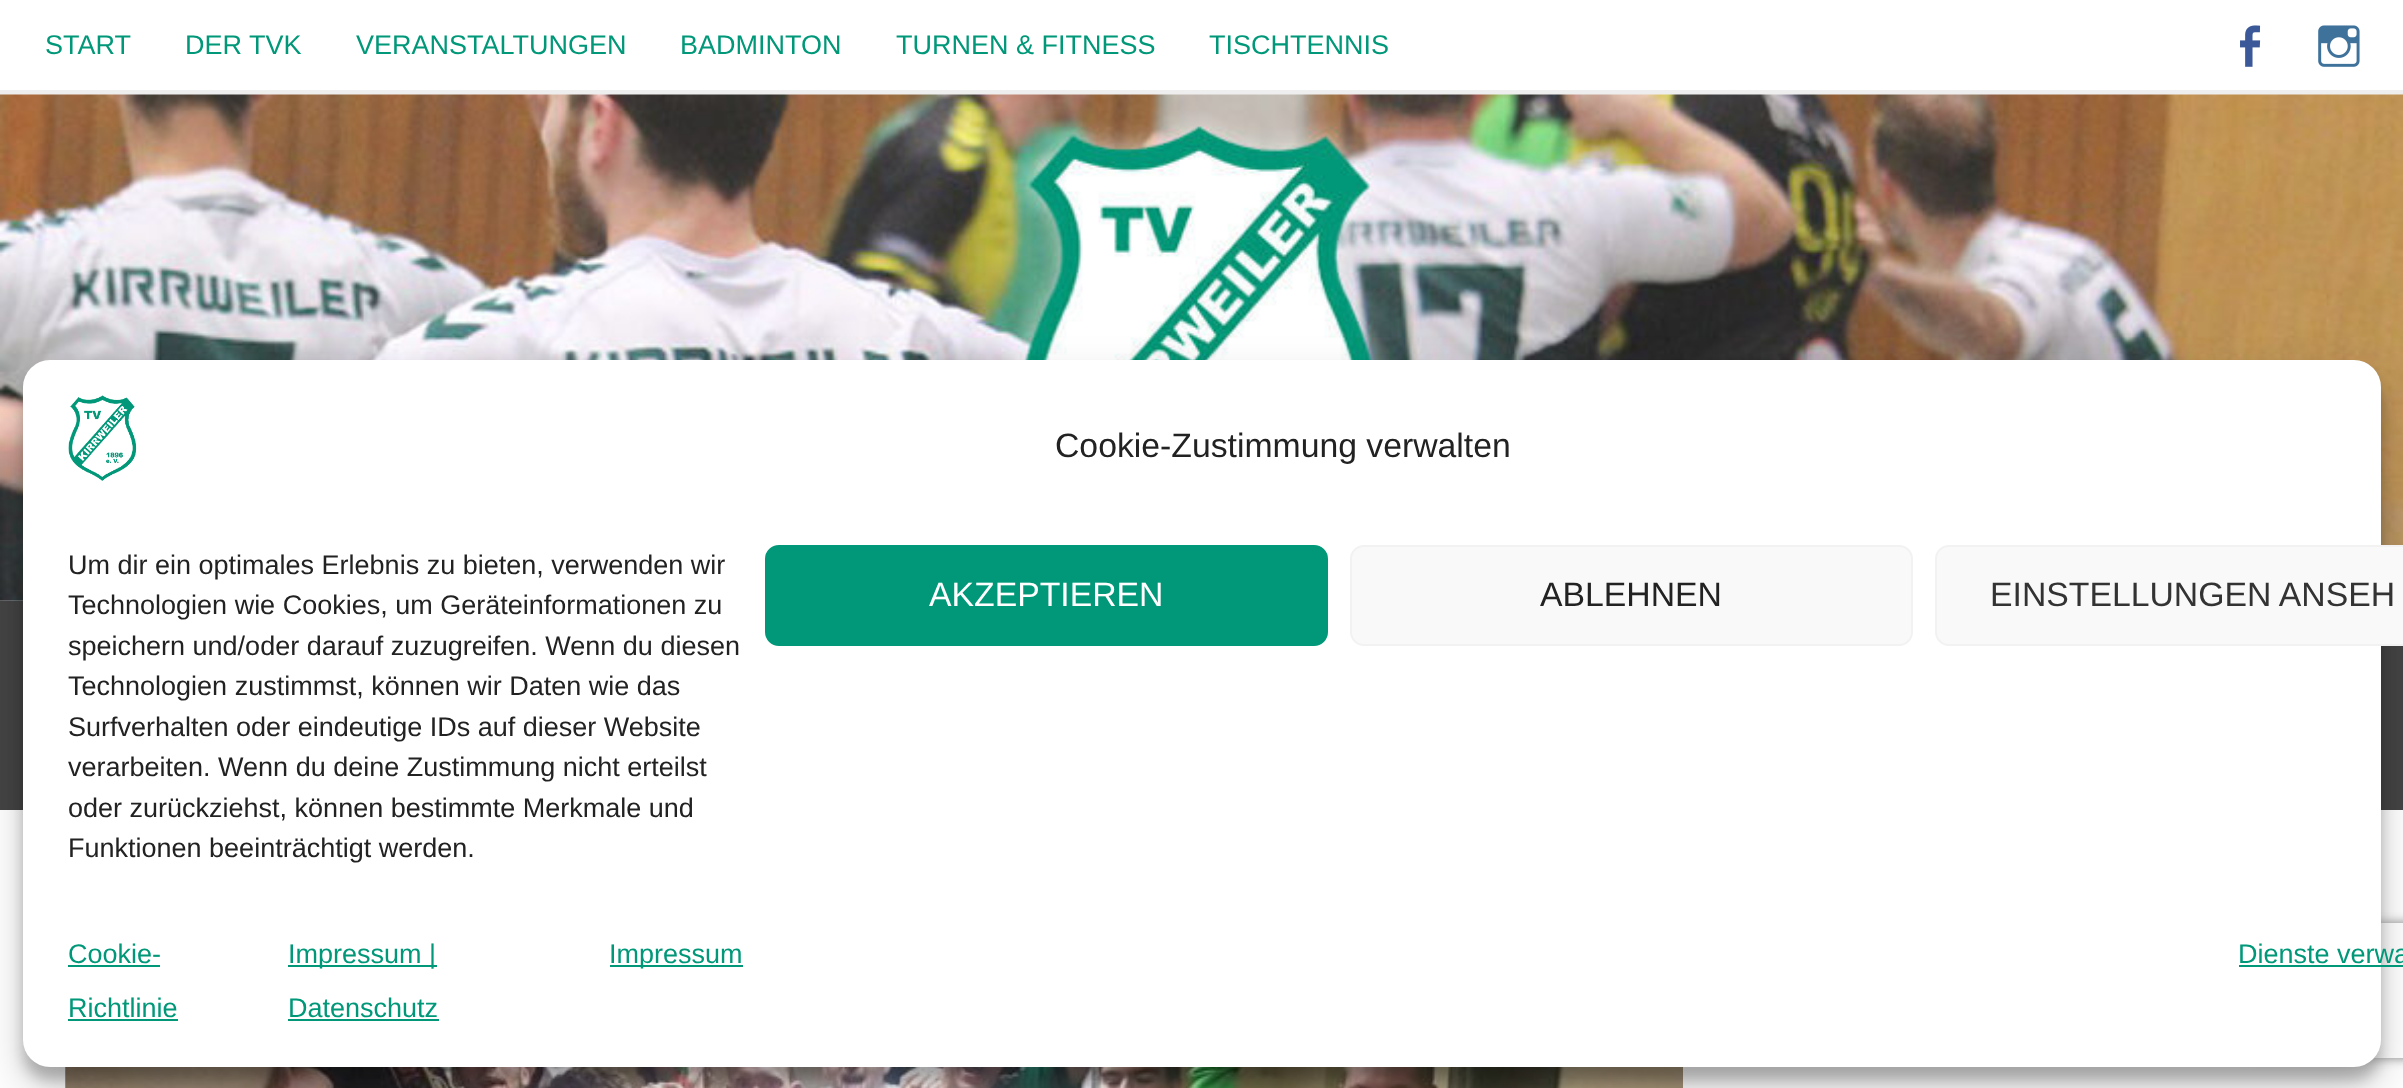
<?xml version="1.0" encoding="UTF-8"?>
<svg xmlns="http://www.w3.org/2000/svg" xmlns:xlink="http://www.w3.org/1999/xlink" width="2403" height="1088">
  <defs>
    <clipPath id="clip1"><path d="M 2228 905 h 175 v 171 h -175 z m 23 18 h 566 c 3 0 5 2 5 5 v 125 c 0 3 -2 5 -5 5 h -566 c -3 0 -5 -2 -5 -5 v -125 c 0 -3 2 -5 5 -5 z" clip-rule="evenodd" /></clipPath>
  </defs>
  <rect width="100%" height="100%" fill="#ffffff" />
  <rect y="90" width="2403" height="5" fill="#eeeeee" />
  <image x="2240" y="25" width="21" height="42" xlink:href="image1.png" />
  <image x="2318" y="25" width="42" height="42" xlink:href="image2.png" />
  <image x="0" y="94" width="2403" height="507" xlink:href="image3.png" />
  <rect y="601" width="2403" height="209" fill="#444444" />
  <image x="65" y="1067" width="1618" height="21" xlink:href="image4.png" />
  <rect x="23" y="374" width="2358" height="706" rx="27" fill="#000000" fill-opacity="0.23" filter="blur(7px)" />
  <rect x="23" y="383" width="2358" height="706" rx="27" fill="#000000" fill-opacity="0.19" filter="blur(22.5px)" />
  <g clip-path="url(#clip1)">
    <rect x="2246" y="923" width="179" height="135" rx="5" fill="#808080" filter="blur(5.5px)" />
  </g>
  <rect x="23" y="360" width="2358" height="707" rx="27" fill="#ffffff" />
  <image x="68" y="395" width="69" height="86" xlink:href="image5.png" />
  <rect x="766" y="546" width="561" height="99" rx="13" fill="#019879" stroke="#019879" stroke-width="2" />
  <rect x="1351" y="546" width="561" height="99" rx="13" fill="#f9f9f9" stroke="#f2f2f2" stroke-width="2" />
  <rect x="1936" y="546" width="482" height="99" rx="13" fill="#f9f9f9" stroke="#f2f2f2" stroke-width="2" />
  <rect x="68" y="965" width="92" height="2" fill="#019879" />
  <rect x="68" y="1019" width="110" height="2" fill="#019879" />
  <rect x="288" y="965" width="149" height="2" fill="#019879" />
  <rect x="288" y="1019" width="151" height="2" fill="#019879" />
  <rect x="610" y="965" width="133" height="2" fill="#019879" />
  <rect x="2239" y="965" width="164" height="2" fill="#019879" />
  <text x="45" y="54" style="font-family: Liberation Sans; font-size: 27px; fill: #019879">START</text>
  <text x="185" y="54" style="font-family: Liberation Sans; font-size: 27px; fill: #019879">DER TVK</text>
  <text x="356" y="54" style="font-family: Liberation Sans; font-size: 27px; fill: #019879">VERANSTALTUNGEN</text>
  <text x="680" y="54" style="font-family: Liberation Sans; font-size: 27px; fill: #019879">BADMINTON</text>
  <text x="896" y="54" style="font-family: Liberation Sans; font-size: 27px; fill: #019879">TURNEN &amp; FITNESS</text>
  <text x="1209" y="54" style="font-family: Liberation Sans; font-size: 27px; fill: #019879">TISCHTENNIS</text>
  <text x="1055" y="457" style="font-family: Liberation Sans; font-size: 33.75px; fill: #222222">Cookie-Zustimmung verwalten</text>
  <text x="68" y="574" style="font-family: Liberation Sans; font-size: 27px; fill: #222222">Um dir ein optimales Erlebnis zu bieten, verwenden wir</text>
  <text x="68" y="614" style="font-family: Liberation Sans; font-size: 27px; fill: #222222">Technologien wie Cookies, um Geräteinformationen zu</text>
  <text x="68" y="655" style="font-family: Liberation Sans; font-size: 27px; fill: #222222">speichern und/oder darauf zuzugreifen. Wenn du diesen</text>
  <text x="68" y="695" style="font-family: Liberation Sans; font-size: 27px; fill: #222222">Technologien zustimmst, können wir Daten wie das</text>
  <text x="68" y="736" style="font-family: Liberation Sans; font-size: 27px; fill: #222222">Surfverhalten oder eindeutige IDs auf dieser Website</text>
  <text x="68" y="776" style="font-family: Liberation Sans; font-size: 27px; fill: #222222">verarbeiten. Wenn du deine Zustimmung nicht erteilst</text>
  <text x="68" y="817" style="font-family: Liberation Sans; font-size: 27px; fill: #222222">oder zurückziehst, können bestimmte Merkmale und</text>
  <text x="68" y="857" style="font-family: Liberation Sans; font-size: 27px; fill: #222222">Funktionen beeinträchtigt werden.</text>
  <text x="929" y="606" style="font-family: Liberation Sans; font-size: 33.75px; fill: #ffffff">AKZEPTIEREN</text>
  <text x="1540" y="606" style="font-family: Liberation Sans; font-size: 33.75px; fill: #222222">ABLEHNEN</text>
  <text x="1990" y="606" style="font-family: Liberation Sans; font-size: 33.75px; fill: #333333">EINSTELLUNGEN ANSEH</text>
  <text x="68" y="963" style="font-family: Liberation Sans; font-size: 27px; fill: #019879">Cookie-</text>
  <text x="68" y="1017" style="font-family: Liberation Sans; font-size: 27px; fill: #019879">Richtlinie</text>
  <text x="288" y="963" style="font-family: Liberation Sans; font-size: 27px; fill: #019879">Impressum |</text>
  <text x="288" y="1017" style="font-family: Liberation Sans; font-size: 27px; fill: #019879">Datenschutz</text>
  <text x="609" y="963" style="font-family: Liberation Sans; font-size: 27px; fill: #019879">Impressum</text>
  <text x="2238" y="963" style="font-family: Liberation Sans; font-size: 27px; fill: #019879">Dienste verwa</text>
</svg>
